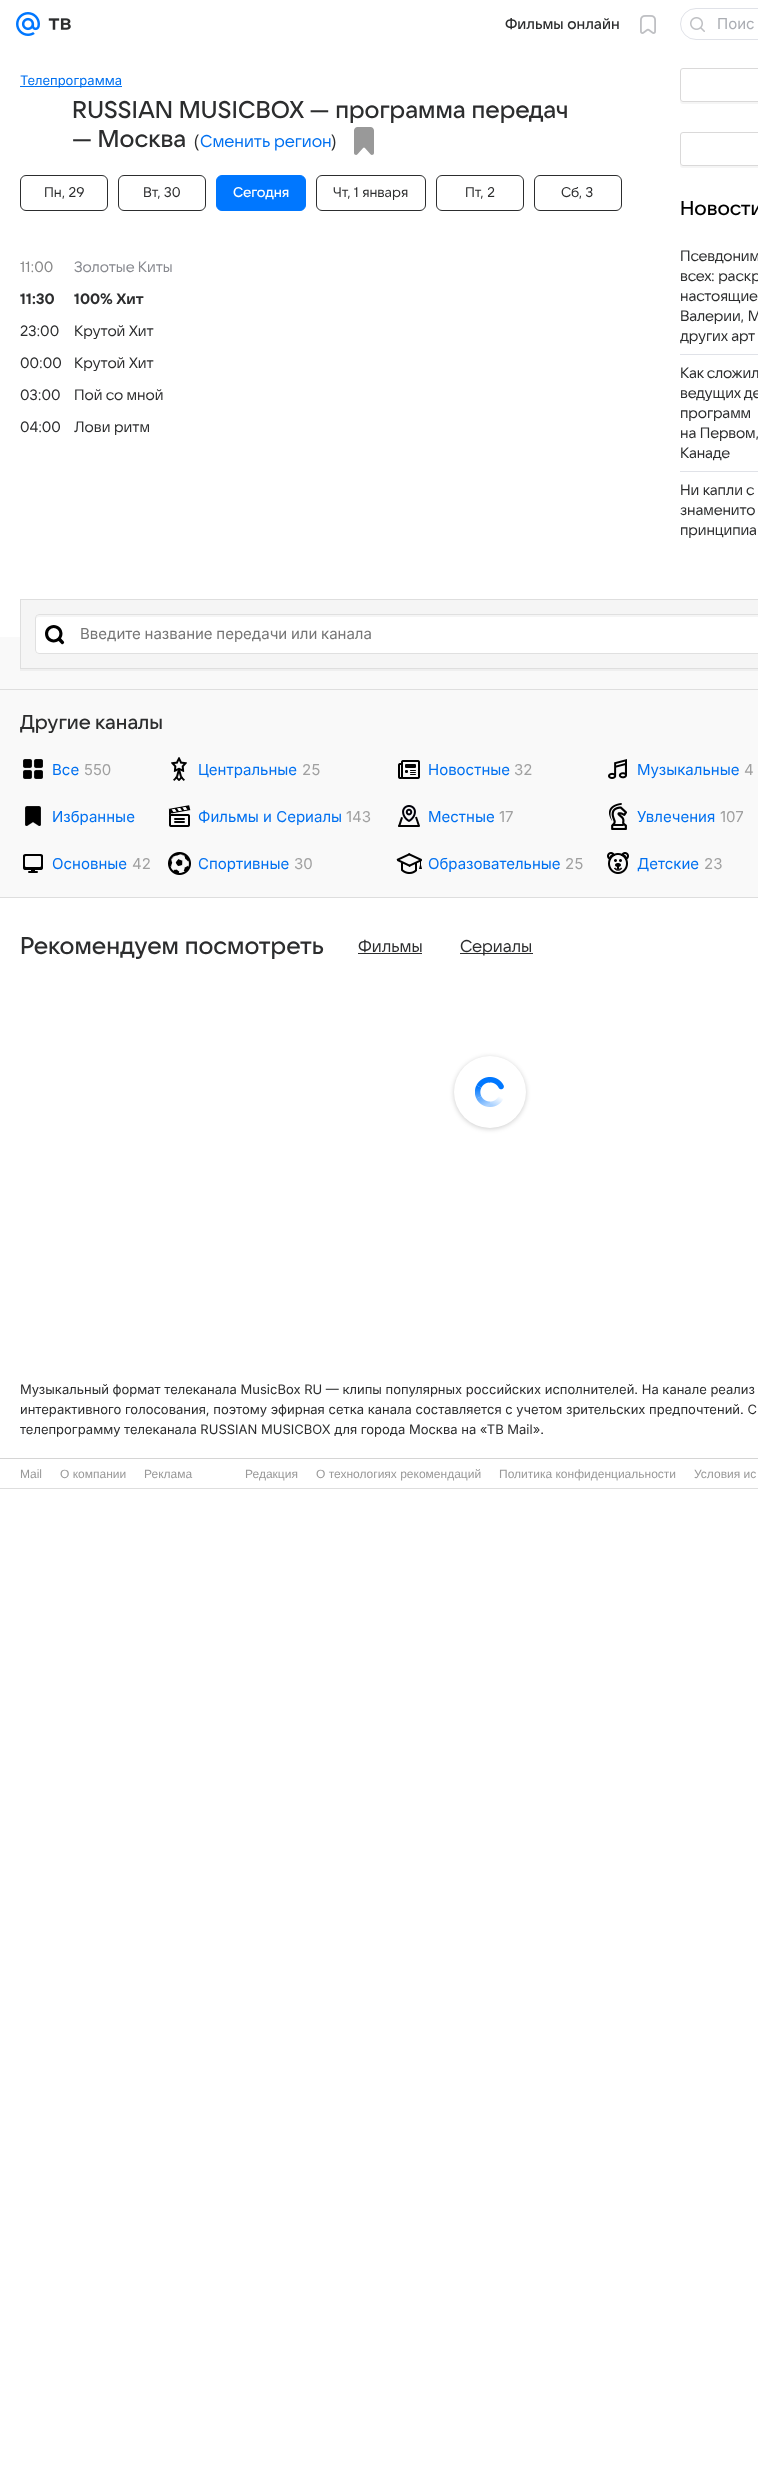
<?xml version="1.0" encoding="UTF-8"?>
<svg xmlns="http://www.w3.org/2000/svg" xmlns:xlink="http://www.w3.org/1999/xlink" width="758" height="2480">
  <rect width="100%" height="100%" fill="#ffffff" />
  <image x="16" y="12" width="24" height="24" xlink:href="image1.png" />
  <image x="48" y="18" width="23" height="12" xlink:href="image2.png" />
  <image x="640" y="15" width="16" height="19" xlink:href="image3.png" />
  <rect x="680.5" y="8.5" width="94" height="31" rx="15.5" fill="none" stroke="#e0e2e8" />
  <image x="690" y="17" width="15" height="15" xlink:href="image4.png" />
  <rect x="20" y="86" width="102" height="1" fill="#0070f0" />
  <image x="354" y="127" width="20" height="28" xlink:href="image5.png" />
  <rect x="20.5" y="175.5" width="87" height="35" rx="5.5" fill="none" stroke="#2c2d2e" />
  <rect x="118.5" y="175.5" width="87" height="35" rx="5.5" fill="none" stroke="#2c2d2e" />
  <rect x="216.5" y="175.5" width="89" height="35" rx="5.5" fill="#0077ff" stroke="#0077ff" />
  <rect x="316.5" y="175.5" width="109" height="35" rx="5.5" fill="none" stroke="#2c2d2e" />
  <rect x="436.5" y="175.5" width="87" height="35" rx="5.5" fill="none" stroke="#2c2d2e" />
  <rect x="534.5" y="175.5" width="87" height="35" rx="5.5" fill="none" stroke="#2c2d2e" />
  <path d="M 680 99 v 2 c 0 2 1 3 3 3 h 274 c 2 0 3 -1 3 -3 v -2 c 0 2 -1 3 -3 3 h -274 c -2 0 -3 -1 -3 -3 z" fill="#f5f5f5" />
  <rect x="680.5" y="68.5" width="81" height="33" rx="2.5" fill="none" stroke="#dad9d9" />
  <path d="M 680 163 v 2 c 0 2 1 3 3 3 h 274 c 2 0 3 -1 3 -3 v -2 c 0 2 -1 3 -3 3 h -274 c -2 0 -3 -1 -3 -3 z" fill="#f5f5f5" />
  <rect x="680.5" y="132.5" width="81" height="33" rx="2.5" fill="none" stroke="#dad9d9" />
  <rect x="680" y="354" width="78" height="1" fill="#e0e2e8" />
  <rect x="680" y="471" width="78" height="1" fill="#e0e2e8" />
  <rect y="637" width="758" height="52" fill="#f9f9f9" />
  <rect x="20" y="669" width="738" height="2" fill="#efefef" />
  <rect x="20.5" y="599.5" width="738" height="69" fill="#f5f5f5" stroke="#dedede" />
  <rect x="35" y="614" width="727" height="40" rx="4" fill="#ffffff" />
  <path d="M 39 617 h 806 c 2 0 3 1 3 3 v -2 c 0 -2 -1 -3 -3 -3 h -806 c -2 0 -3 1 -3 3 v 2 c 0 -2 1 -3 3 -3 z" fill="#f5f5f5" />
  <rect x="35.5" y="614.5" width="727" height="39" rx="3.5" fill="none" stroke="#e0e0e0" />
  <image x="45" y="625" width="20" height="20" xlink:href="image6.png" />
  <rect y="690" width="758" height="207" fill="#f9f9f9" />
  <rect y="689" width="758" height="1" fill="#dedede" />
  <image x="23" y="759" width="20" height="20" xlink:href="image7.png" />
  <image x="25" y="806" width="16" height="20" xlink:href="image8.png" />
  <image x="23" y="854" width="20" height="19" xlink:href="image9.png" />
  <image x="171" y="757" width="16" height="24" xlink:href="image10.png" />
  <image x="168" y="805" width="23" height="22" xlink:href="image11.png" />
  <image x="168" y="852" width="23" height="23" xlink:href="image12.png" />
  <image x="398" y="760" width="22" height="19" xlink:href="image13.png" />
  <image x="398" y="805" width="22" height="22" xlink:href="image14.png" />
  <image x="396" y="853" width="26" height="21" xlink:href="image15.png" />
  <image x="608" y="759" width="19" height="20" xlink:href="image16.png" />
  <image x="609" y="803" width="18" height="27" xlink:href="image17.png" />
  <image x="607" y="852" width="22" height="22" xlink:href="image18.png" />
  <rect y="897" width="758" height="1" fill="#dedede" />
  <rect x="358" y="953" width="64" height="1" fill="#2c2d2e" />
  <rect x="460" y="953" width="73" height="1" fill="#2c2d2e" />
  <rect x="454" y="1057" width="72" height="72" rx="36" fill="#000000" fill-opacity="0.2" filter="blur(2.5px)" />
  <circle cx="490" cy="1092" r="36" fill="#ffffff" />
  <image x="475" y="1077" width="29" height="30" xlink:href="image19.png" />
  <rect y="1458" width="758" height="1" fill="#d5d5d5" />
  <rect y="1488" width="758" height="1" fill="#dedede" />
  <text x="505" y="29" style="font-family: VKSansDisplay; font-size: 15px; font-weight: 500; fill: #2c2d2e">Фильмы онлайн</text>
  <text x="717" y="29" style="font-family: Inter; font-size: 15px; fill: #aaadb3">Поис</text>
  <text x="20" y="85" style="font-family: Inter; font-size: 13px; fill: #0070f0">Телепрограмма</text>
  <text x="72" y="118" style="font-family: VKSansDisplay; font-size: 24px; font-weight: 500; fill: #2c2d2e">RUSSIAN MUSICBOX — программа передач</text>
  <text x="72" y="147" style="font-family: VKSansDisplay; font-size: 24px; font-weight: 500; fill: #2c2d2e">— Москва</text>
  <text x="194" y="147" style="font-family: VKSansDisplay; font-size: 17px; fill: #2c2d2e">(</text>
  <text x="200" y="147" style="font-family: VKSansDisplay; font-size: 17px; fill: #0070f0">Сменить регион</text>
  <text x="331" y="147" style="font-family: VKSansDisplay; font-size: 17px; fill: #2c2d2e">)</text>
  <text x="44" y="197" style="font-family: VKSansDisplay; font-size: 14px; fill: #2c2d2e">Пн, 29</text>
  <text x="143" y="197" style="font-family: VKSansDisplay; font-size: 14px; fill: #2c2d2e">Вт, 30</text>
  <text x="233" y="197" style="font-family: VKSansDisplay; font-size: 14px; font-weight: 500; fill: #ffffff">Сегодня</text>
  <text x="333" y="197" style="font-family: VKSansDisplay; font-size: 14px; fill: #2c2d2e">Чт, 1 января</text>
  <text x="465" y="197" style="font-family: VKSansDisplay; font-size: 14px; fill: #2c2d2e">Пт, 2</text>
  <text x="561" y="197" style="font-family: VKSansDisplay; font-size: 14px; fill: #2c2d2e">Сб, 3</text>
  <text x="680" y="215" style="font-family: VKSansDisplay; font-size: 20px; font-weight: 500; fill: #000000">Новости</text>
  <text x="680" y="261" style="font-family: VKSansDisplay; font-size: 15px; letter-spacing: -0.1px; fill: #2c2d2e">Псевдоним</text>
  <text x="680" y="281" style="font-family: VKSansDisplay; font-size: 15px; letter-spacing: -0.1px; fill: #2c2d2e">всех: раскр</text>
  <text x="680" y="301" style="font-family: VKSansDisplay; font-size: 15px; letter-spacing: -0.1px; fill: #2c2d2e">настоящие</text>
  <text x="680" y="321" style="font-family: VKSansDisplay; font-size: 15px; letter-spacing: -0.1px; fill: #2c2d2e">Валерии, М</text>
  <text x="680" y="341" style="font-family: VKSansDisplay; font-size: 15px; letter-spacing: -0.1px; fill: #2c2d2e">других арт</text>
  <text x="680" y="378" style="font-family: VKSansDisplay; font-size: 15px; letter-spacing: -0.1px; fill: #2c2d2e">Как сложил</text>
  <text x="680" y="398" style="font-family: VKSansDisplay; font-size: 15px; letter-spacing: -0.1px; fill: #2c2d2e">ведущих де</text>
  <text x="680" y="418" style="font-family: VKSansDisplay; font-size: 15px; letter-spacing: -0.1px; fill: #2c2d2e">программ</text>
  <text x="680" y="438" style="font-family: VKSansDisplay; font-size: 15px; letter-spacing: -0.1px; fill: #2c2d2e">на Первом,</text>
  <text x="680" y="458" style="font-family: VKSansDisplay; font-size: 15px; letter-spacing: -0.1px; fill: #2c2d2e">Канаде</text>
  <text x="680" y="495" style="font-family: VKSansDisplay; font-size: 15px; letter-spacing: -0.1px; fill: #2c2d2e">Ни капли с</text>
  <text x="680" y="515" style="font-family: VKSansDisplay; font-size: 15px; letter-spacing: -0.1px; fill: #2c2d2e">знаменито</text>
  <text x="680" y="535" style="font-family: VKSansDisplay; font-size: 15px; letter-spacing: -0.1px; fill: #2c2d2e">принципиа</text>
  <text x="20" y="272" style="font-family: VKSansDisplay; font-size: 15px; fill: #898989">11:00</text>
  <text x="74" y="272" style="font-family: VKSansDisplay; font-size: 15px; fill: #87898f">Золотые Киты</text>
  <text x="20" y="304" style="font-family: VKSansDisplay; font-size: 15px; font-weight: bold; fill: #2c2d2e">11:30</text>
  <text x="74" y="304" style="font-family: VKSansDisplay; font-size: 15px; font-weight: bold; fill: #2c2d2e">100% Хит</text>
  <text x="20" y="336" style="font-family: VKSansDisplay; font-size: 15px; fill: #2c2d2e">23:00</text>
  <text x="74" y="336" style="font-family: VKSansDisplay; font-size: 15px; fill: #2c2d2e">Крутой Хит</text>
  <text x="20" y="368" style="font-family: VKSansDisplay; font-size: 15px; fill: #2c2d2e">00:00</text>
  <text x="74" y="368" style="font-family: VKSansDisplay; font-size: 15px; fill: #2c2d2e">Крутой Хит</text>
  <text x="20" y="400" style="font-family: VKSansDisplay; font-size: 15px; fill: #2c2d2e">03:00</text>
  <text x="74" y="400" style="font-family: VKSansDisplay; font-size: 15px; fill: #2c2d2e">Пой со мной</text>
  <text x="20" y="432" style="font-family: VKSansDisplay; font-size: 15px; fill: #2c2d2e">04:00</text>
  <text x="74" y="432" style="font-family: VKSansDisplay; font-size: 15px; fill: #2c2d2e">Лови ритм</text>
  <text x="80" y="639" word-spacing="-0.5" style="font-family: Inter; font-size: 15px; fill: #757575">Введите название передачи или канала</text>
  <text x="20" y="729" style="font-family: VKSansDisplay; font-size: 20px; font-weight: 500; fill: #2c2d2e">Другие каналы</text>
  <text x="52" y="775" style="font-family: Inter; font-size: 15px; fill: #0070f0">Все</text>
  <text x="84" y="775" style="font-family: 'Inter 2'; font-size: 15px; fill: #a0a0a0">550</text>
  <text x="52" y="822" style="font-family: Inter; font-size: 15px; fill: #0070f0">Избранные</text>
  <text x="52" y="869" style="font-family: Inter; font-size: 15px; fill: #0070f0">Основные</text>
  <text x="132" y="869" style="font-family: Inter; font-size: 15px; fill: #a0a0a0">42</text>
  <text x="198" y="775" style="font-family: Inter; font-size: 15px; fill: #0070f0">Центральные</text>
  <text x="302" y="775" style="font-family: Inter; font-size: 15px; fill: #a0a0a0">25</text>
  <text x="198" y="822" style="font-family: Inter; font-size: 15px; fill: #0070f0">Фильмы и Сериалы</text>
  <text x="346" y="822" style="font-family: Inter; font-size: 15px; fill: #a0a0a0">143</text>
  <text x="198" y="869" style="font-family: Inter; font-size: 15px; fill: #0070f0">Спортивные</text>
  <text x="294" y="869" style="font-family: Inter; font-size: 15px; fill: #a0a0a0">30</text>
  <text x="428" y="775" style="font-family: Inter; font-size: 15px; fill: #0070f0">Новостные</text>
  <text x="514" y="775" style="font-family: Inter; font-size: 15px; fill: #a0a0a0">32</text>
  <text x="428" y="822" style="font-family: Inter; font-size: 15px; fill: #0070f0">Местные</text>
  <text x="499" y="822" style="font-family: Inter; font-size: 15px; fill: #a0a0a0">17</text>
  <text x="428" y="869" style="font-family: Inter; font-size: 15px; fill: #0070f0">Образовательные</text>
  <text x="565" y="869" style="font-family: Inter; font-size: 15px; fill: #a0a0a0">25</text>
  <text x="637" y="775" style="font-family: Inter; font-size: 15px; fill: #0070f0">Музыкальные</text>
  <text x="744" y="775" style="font-family: Inter; font-size: 15px; fill: #a0a0a0">4</text>
  <text x="637" y="822" style="font-family: Inter; font-size: 15px; fill: #0070f0">Увлечения</text>
  <text x="720" y="822" style="font-family: Inter; font-size: 15px; fill: #a0a0a0">107</text>
  <text x="637" y="869" style="font-family: Inter; font-size: 15px; fill: #0070f0">Детские</text>
  <text x="704" y="869" style="font-family: Inter; font-size: 15px; fill: #a0a0a0">23</text>
  <text x="20" y="954" style="font-family: VKSansDisplay; font-size: 24px; font-weight: 500; fill: #2c2d2e">Рекомендуем посмотреть</text>
  <text x="358" y="952" style="font-family: VKSansDisplay; font-size: 17px; fill: #2c2d2e">Фильмы</text>
  <text x="460" y="952" style="font-family: VKSansDisplay; font-size: 17px; fill: #2c2d2e">Сериалы</text>
  <text x="20" y="1394" style="font-family: Inter; font-size: 13px; fill: #2c2d2e">Музыкальный формат телеканала MusicBox RU — клипы популярных российских исполнителей. На канале реализ</text>
  <text x="20" y="1414" style="font-family: Inter; font-size: 13px; fill: #2c2d2e">интерактивного голосования, поэтому эфирная сетка канала составляется с учетом зрительских предпочтений. С</text>
  <text x="20" y="1434" style="font-family: Inter; font-size: 13px; fill: #2c2d2e">телепрограмму телеканала RUSSIAN MUSICBOX для города Москва на «ТВ Mail».</text>
  <text x="20" y="1478" style="font-family: Liberation Sans; font-size: 12px; fill: #999999">Mail</text>
  <text x="60" y="1478" style="font-family: Liberation Sans; font-size: 12px; fill: #999999">О компании</text>
  <text x="144" y="1478" style="font-family: Liberation Sans; font-size: 12px; fill: #999999">Реклама</text>
  <text x="245" y="1478" style="font-family: Liberation Sans; font-size: 12px; fill: #999999">Редакция</text>
  <text x="316" y="1478" style="font-family: Liberation Sans; font-size: 12px; fill: #999999">О технологиях рекомендаций</text>
  <text x="499" y="1478" style="font-family: Liberation Sans; font-size: 12px; fill: #999999">Политика конфиденциальности</text>
  <text x="694" y="1478" style="font-family: Liberation Sans; font-size: 12px; fill: #999999">Условия ис</text>
</svg>
